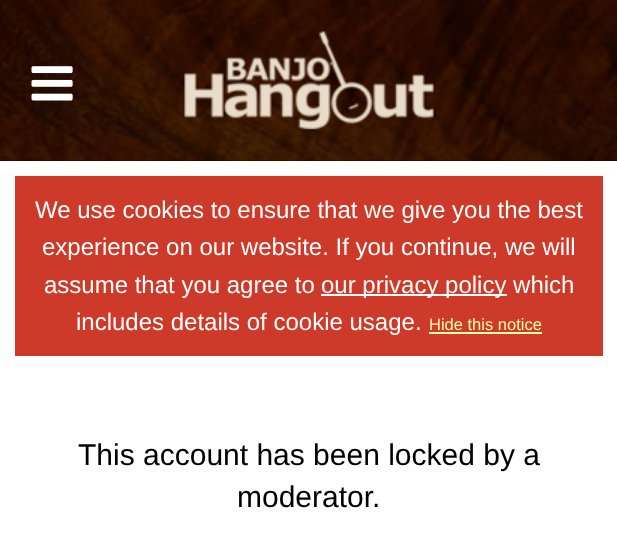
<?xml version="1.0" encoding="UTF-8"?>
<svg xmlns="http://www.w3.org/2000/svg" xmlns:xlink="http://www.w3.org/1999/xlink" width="617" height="539">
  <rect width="100%" height="100%" fill="#220201" />
  <image x="0" y="0" width="617" height="161" xlink:href="image1.png" />
  <image x="31" y="66" width="42" height="35" xlink:href="image2.png" />
  <image x="184" y="31" width="250" height="99" xlink:href="image3.png" />
  <rect y="161" width="617" height="378" fill="#fefefe" />
  <rect x="15" y="176" width="588" height="180" fill="#ce3a29" />
  <rect x="321" y="294" width="186" height="2" fill="#ffffff" />
  <rect x="429" y="332" width="113" height="2" fill="#ffffaa" />
  <text x="35" y="218" style="font-family: Liberation Sans; font-size: 24px; fill: #ffffff">We use cookies to ensure that we give you the best</text>
  <text x="42" y="255" style="font-family: Liberation Sans; font-size: 24px; fill: #ffffff">experience on our website. If you continue, we will</text>
  <text x="44" y="293" style="font-family: Liberation Sans; font-size: 24px; fill: #ffffff">assume that you agree to</text>
  <text x="321" y="293" style="font-family: Liberation Sans; font-size: 24px; fill: #ffffff">our privacy policy which</text>
  <text x="76" y="330" style="font-family: Liberation Sans; font-size: 24px; fill: #ffffff">includes details of cookie usage.</text>
  <text x="429" y="330" style="font-family: Liberation Sans; font-size: 16.5px; fill: #ffffaa">Hide this notice</text>
  <text x="78" y="465" style="font-family: Liberation Sans; font-size: 30px; fill: #000000">This account has been locked by a</text>
  <text x="237" y="507" style="font-family: Liberation Sans; font-size: 30px; fill: #000000">moderator.</text>
</svg>
